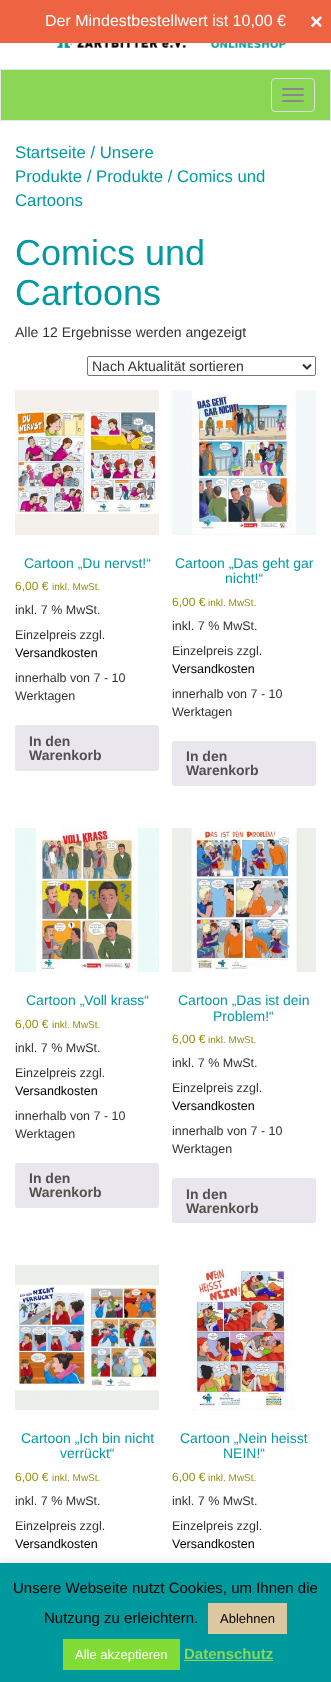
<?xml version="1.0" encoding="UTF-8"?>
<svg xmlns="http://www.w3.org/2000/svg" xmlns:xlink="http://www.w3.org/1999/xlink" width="331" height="1682">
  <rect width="100%" height="100%" fill="#ffffff" />
  <rect width="331" height="43" fill="#ee6443" />
  <image x="45" y="43" width="241" height="5" xlink:href="image1.png" />
  <rect x="0.5" y="69.5" width="330" height="51" fill="#8bd655" stroke="#e7e7e7" />
  <rect x="271.5" y="78.5" width="43" height="33" rx="3.5" fill="none" stroke="#dddddd" />
  <rect x="282" y="88" width="22" height="2" rx="1" fill="#888888" />
  <rect x="282" y="94" width="22" height="2" rx="1" fill="#888888" />
  <rect x="282" y="100" width="22" height="2" rx="1" fill="#888888" />
  <rect x="87.5" y="356.5" width="228" height="19" rx="1.5" fill="none" stroke="#767676" />
  <path d="M 303 364.5 l 4 4 l 4 -4" fill="none" stroke="#333333" stroke-width="2" />
  <image x="15" y="390" width="144" height="145" xlink:href="image2.png" />
  <rect x="15" y="725" width="144" height="46" rx="3" fill="#e9e6ed" />
  <image x="172" y="390" width="144" height="145" xlink:href="image3.png" />
  <rect x="172" y="741" width="144" height="45" rx="3" fill="#e9e6ed" />
  <image x="15" y="828" width="144" height="144" xlink:href="image4.png" />
  <rect x="15" y="1163" width="144" height="45" rx="3" fill="#e9e6ed" />
  <image x="172" y="828" width="144" height="144" xlink:href="image5.png" />
  <rect x="172" y="1178" width="144" height="45" rx="3" fill="#e9e6ed" />
  <image x="15" y="1265" width="144" height="145" xlink:href="image6.png" />
  <image x="190" y="1265" width="106" height="145" xlink:href="image7.png" />
  <rect y="1562" width="331" height="119" fill="#acabab" fill-opacity="0.3" filter="blur(5px)" />
  <rect y="1563" width="331" height="119" fill="#00999d" />
  <rect x="208" y="1603" width="79" height="31" fill="#ddc7a1" />
  <rect x="63" y="1639" width="117" height="31" fill="#83db36" />
  <rect x="184" y="1660" width="89" height="1" fill="#8bd655" />
  <text x="45" y="26" style="font-family: Liberation Sans; font-size: 16px; fill: #ffffff">Der Mindestbestellwert ist 10,00 €</text>
  <text x="310" y="29" style="font-family: Liberation Sans; font-size: 22px; font-weight: bold; fill: #ffffff">×</text>
  <text x="15" y="158" style="font-family: Liberation Sans; font-size: 16.75px; fill: #0399a1">Startseite / Unsere</text>
  <text x="15" y="182" style="font-family: Liberation Sans; font-size: 16.75px; fill: #0399a1">Produkte / Produkte / Comics und</text>
  <text x="15" y="206" style="font-family: Liberation Sans; font-size: 16.75px; fill: #0399a1">Cartoons</text>
  <text x="15" y="265" style="font-family: Liberation Sans; font-size: 36px; fill: #0399a1">Comics und</text>
  <text x="15" y="305" style="font-family: Liberation Sans; font-size: 36px; fill: #0399a1">Cartoons</text>
  <text x="15" y="337" style="font-family: Liberation Sans; font-size: 14px; fill: #333333">Alle 12 Ergebnisse werden angezeigt</text>
  <text x="92" y="371" style="font-family: Liberation Sans; font-size: 14px; fill: #333333">Nach Aktualität sortieren</text>
  <text x="24" y="568" style="font-family: Liberation Sans; font-size: 14px; fill: #0399a1">Cartoon „Du nervst!“</text>
  <text x="15" y="590" style="font-family: Liberation Sans; font-size: 12px; fill: #958e09">6,00 €</text>
  <text x="52" y="590" style="font-family: Liberation Sans; font-size: 10px; fill: #958e09">inkl. MwSt.</text>
  <text x="15" y="614" style="font-family: Liberation Sans; font-size: 12.5px; fill: #333333">inkl. 7 % MwSt.</text>
  <text x="15" y="639" style="font-family: Liberation Sans; font-size: 12.5px; fill: #333333">Einzelpreis zzgl.</text>
  <text x="15" y="657" style="font-family: Liberation Sans; font-size: 12.5px; fill: #000000">Versandkosten</text>
  <text x="15" y="682" style="font-family: Liberation Sans; font-size: 12.5px; fill: #333333">innerhalb von 7 - 10</text>
  <text x="15" y="700" style="font-family: Liberation Sans; font-size: 12.5px; fill: #333333">Werktagen</text>
  <text x="29" y="746" style="font-family: Liberation Sans; font-size: 14px; font-weight: bold; fill: #515151">In den</text>
  <text x="29" y="760" style="font-family: Liberation Sans; font-size: 14px; font-weight: bold; fill: #515151">Warenkorb</text>
  <text x="175" y="568" style="font-family: Liberation Sans; font-size: 14px; fill: #0399a1">Cartoon „Das geht gar</text>
  <text x="225" y="583" style="font-family: Liberation Sans; font-size: 14px; fill: #0399a1">nicht!“</text>
  <text x="172" y="606" style="font-family: Liberation Sans; font-size: 12px; fill: #958e09">6,00 €</text>
  <text x="208" y="606" style="font-family: Liberation Sans; font-size: 10px; fill: #958e09">inkl. MwSt.</text>
  <text x="172" y="630" style="font-family: Liberation Sans; font-size: 12.5px; fill: #333333">inkl. 7 % MwSt.</text>
  <text x="172" y="655" style="font-family: Liberation Sans; font-size: 12.5px; fill: #333333">Einzelpreis zzgl.</text>
  <text x="172" y="673" style="font-family: Liberation Sans; font-size: 12.5px; fill: #000000">Versandkosten</text>
  <text x="172" y="698" style="font-family: Liberation Sans; font-size: 12.5px; fill: #333333">innerhalb von 7 - 10</text>
  <text x="172" y="716" style="font-family: Liberation Sans; font-size: 12.5px; fill: #333333">Werktagen</text>
  <text x="186" y="761" style="font-family: Liberation Sans; font-size: 14px; font-weight: bold; fill: #515151">In den</text>
  <text x="186" y="775" style="font-family: Liberation Sans; font-size: 14px; font-weight: bold; fill: #515151">Warenkorb</text>
  <text x="26" y="1005" style="font-family: Liberation Sans; font-size: 14px; fill: #0399a1">Cartoon „Voll krass“</text>
  <text x="15" y="1028" style="font-family: Liberation Sans; font-size: 12px; fill: #958e09">6,00 €</text>
  <text x="52" y="1028" style="font-family: Liberation Sans; font-size: 10px; fill: #958e09">inkl. MwSt.</text>
  <text x="15" y="1052" style="font-family: Liberation Sans; font-size: 12.5px; fill: #333333">inkl. 7 % MwSt.</text>
  <text x="15" y="1077" style="font-family: Liberation Sans; font-size: 12.5px; fill: #333333">Einzelpreis zzgl.</text>
  <text x="15" y="1095" style="font-family: Liberation Sans; font-size: 12.5px; fill: #000000">Versandkosten</text>
  <text x="15" y="1120" style="font-family: Liberation Sans; font-size: 12.5px; fill: #333333">innerhalb von 7 - 10</text>
  <text x="15" y="1138" style="font-family: Liberation Sans; font-size: 12.5px; fill: #333333">Werktagen</text>
  <text x="29" y="1183" style="font-family: Liberation Sans; font-size: 14px; font-weight: bold; fill: #515151">In den</text>
  <text x="29" y="1197" style="font-family: Liberation Sans; font-size: 14px; font-weight: bold; fill: #515151">Warenkorb</text>
  <text x="178" y="1005" style="font-family: Liberation Sans; font-size: 14px; fill: #0399a1">Cartoon „Das ist dein</text>
  <text x="213" y="1021" style="font-family: Liberation Sans; font-size: 14px; fill: #0399a1">Problem!“</text>
  <text x="172" y="1043" style="font-family: Liberation Sans; font-size: 12px; fill: #958e09">6,00 €</text>
  <text x="208" y="1043" style="font-family: Liberation Sans; font-size: 10px; fill: #958e09">inkl. MwSt.</text>
  <text x="172" y="1067" style="font-family: Liberation Sans; font-size: 12.5px; fill: #333333">inkl. 7 % MwSt.</text>
  <text x="172" y="1092" style="font-family: Liberation Sans; font-size: 12.5px; fill: #333333">Einzelpreis zzgl.</text>
  <text x="172" y="1110" style="font-family: Liberation Sans; font-size: 12.5px; fill: #000000">Versandkosten</text>
  <text x="172" y="1135" style="font-family: Liberation Sans; font-size: 12.5px; fill: #333333">innerhalb von 7 - 10</text>
  <text x="172" y="1153" style="font-family: Liberation Sans; font-size: 12.5px; fill: #333333">Werktagen</text>
  <text x="186" y="1199" style="font-family: Liberation Sans; font-size: 14px; font-weight: bold; fill: #515151">In den</text>
  <text x="186" y="1213" style="font-family: Liberation Sans; font-size: 14px; font-weight: bold; fill: #515151">Warenkorb</text>
  <text x="21" y="1443" style="font-family: Liberation Sans; font-size: 14px; fill: #0399a1">Cartoon „Ich bin nicht</text>
  <text x="60" y="1458" style="font-family: Liberation Sans; font-size: 14px; fill: #0399a1">verrückt“</text>
  <text x="15" y="1481" style="font-family: Liberation Sans; font-size: 12px; fill: #958e09">6,00 €</text>
  <text x="52" y="1481" style="font-family: Liberation Sans; font-size: 10px; fill: #958e09">inkl. MwSt.</text>
  <text x="15" y="1505" style="font-family: Liberation Sans; font-size: 12.5px; fill: #333333">inkl. 7 % MwSt.</text>
  <text x="15" y="1530" style="font-family: Liberation Sans; font-size: 12.5px; fill: #333333">Einzelpreis zzgl.</text>
  <text x="15" y="1548" style="font-family: Liberation Sans; font-size: 12.5px; fill: #000000">Versandkosten</text>
  <text x="180" y="1443" style="font-family: Liberation Sans; font-size: 14px; fill: #0399a1">Cartoon „Nein heisst</text>
  <text x="223" y="1458" style="font-family: Liberation Sans; font-size: 14px; fill: #0399a1">NEIN!“</text>
  <text x="172" y="1481" style="font-family: Liberation Sans; font-size: 12px; fill: #958e09">6,00 €</text>
  <text x="208" y="1481" style="font-family: Liberation Sans; font-size: 10px; fill: #958e09">inkl. MwSt.</text>
  <text x="172" y="1505" style="font-family: Liberation Sans; font-size: 12.5px; fill: #333333">inkl. 7 % MwSt.</text>
  <text x="172" y="1530" style="font-family: Liberation Sans; font-size: 12.5px; fill: #333333">Einzelpreis zzgl.</text>
  <text x="172" y="1548" style="font-family: Liberation Sans; font-size: 12.5px; fill: #000000">Versandkosten</text>
  <text x="13" y="1593" style="font-family: Liberation Sans; font-size: 15px; fill: #000000">Unsere Webseite nutzt Cookies, um Ihnen die</text>
  <text x="44" y="1623" style="font-family: Liberation Sans; font-size: 15px; fill: #000000">Nutzung zu erleichtern.</text>
  <text x="220" y="1623" style="font-family: Liberation Sans; font-size: 13px; fill: #000000">Ablehnen</text>
  <text x="75" y="1659" style="font-family: Liberation Sans; font-size: 13px; fill: #ffffff">Alle akzeptieren</text>
  <text x="184" y="1659" style="font-family: Liberation Sans; font-size: 15px; font-weight: bold; fill: #8bd655">Datenschutz</text>
</svg>
